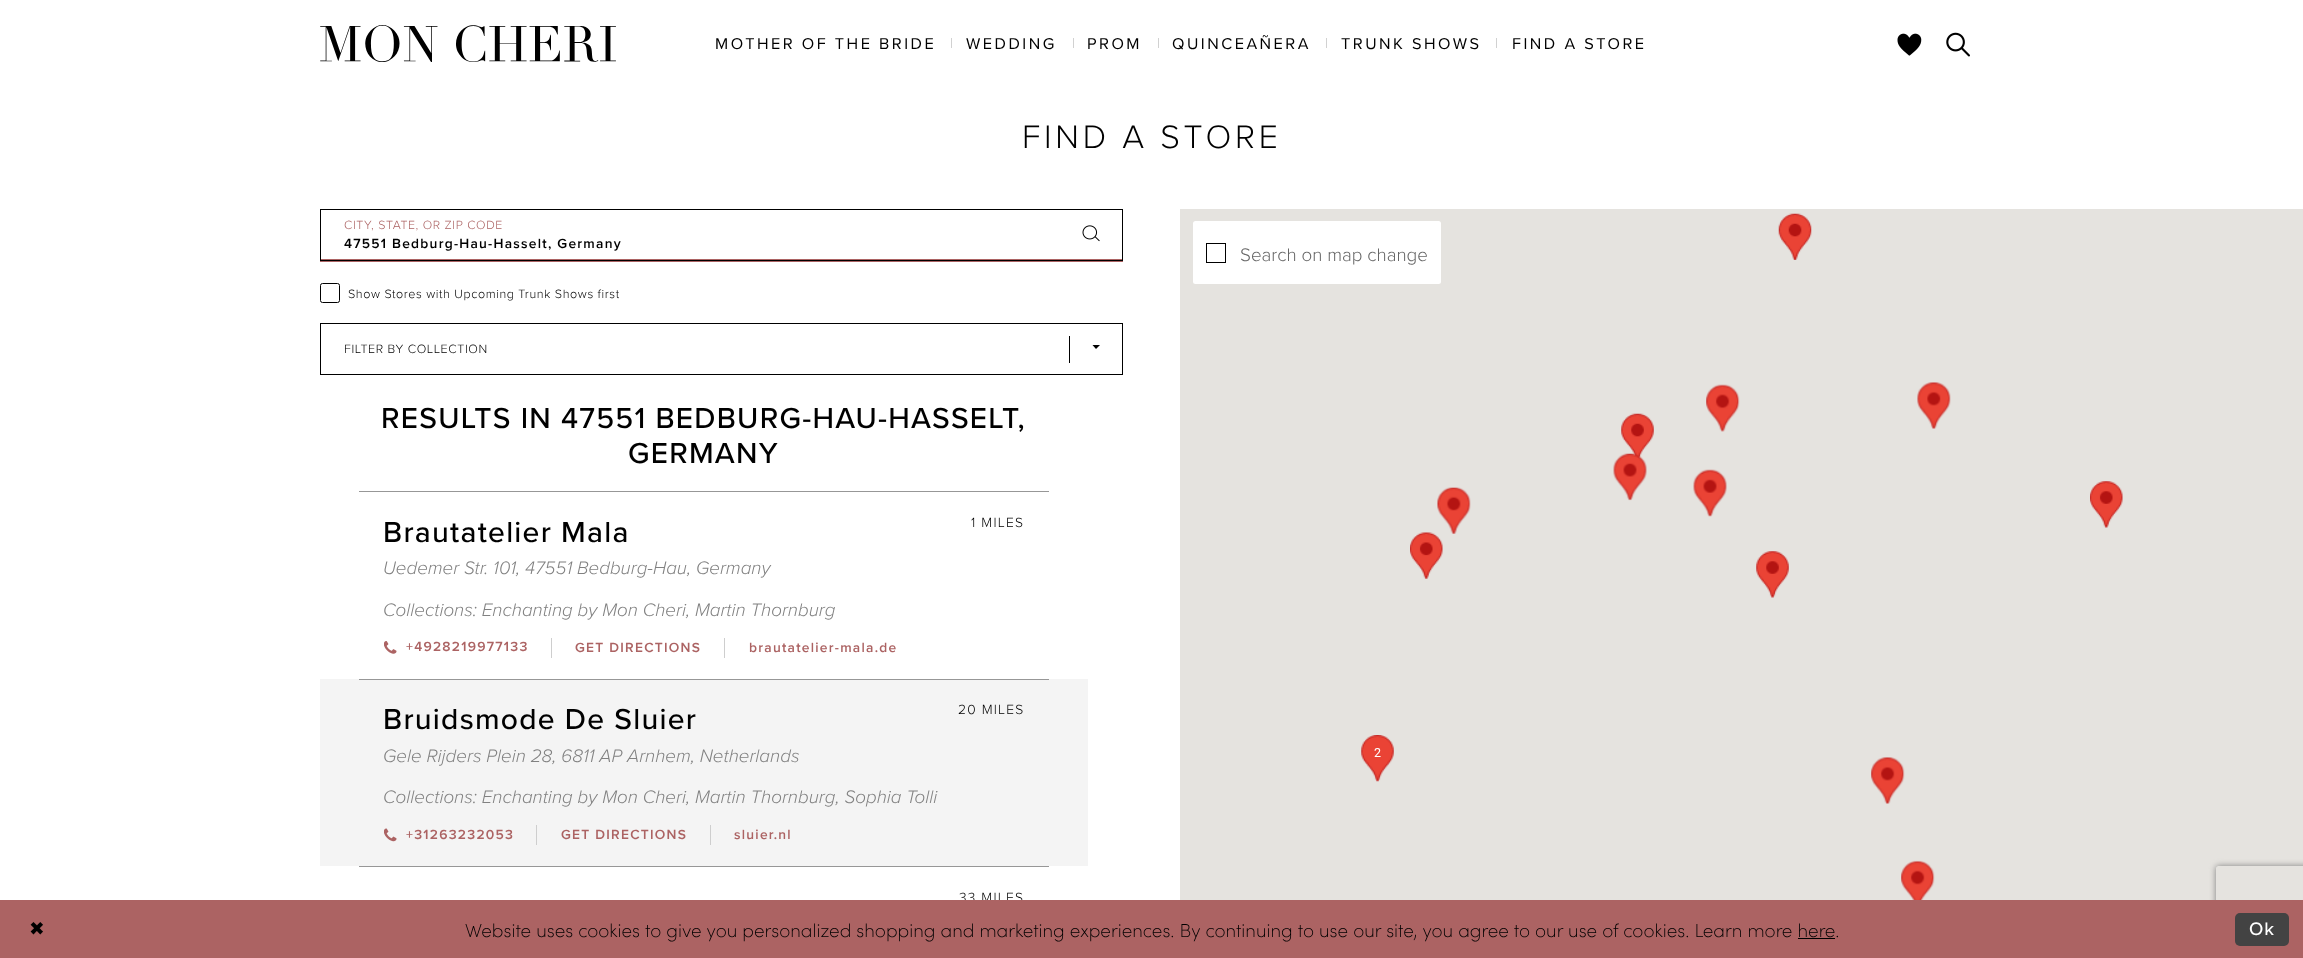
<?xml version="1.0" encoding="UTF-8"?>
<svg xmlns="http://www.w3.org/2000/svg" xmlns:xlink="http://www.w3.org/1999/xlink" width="2303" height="958">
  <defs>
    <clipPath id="clip1"><path d="M 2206 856 h 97 v 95 h -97 z m 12.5 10 h 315 c 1.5 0 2.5 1 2.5 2.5 v 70 c 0 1.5 -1 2.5 -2.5 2.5 h -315 c -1.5 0 -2.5 -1 -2.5 -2.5 v -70 c 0 -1.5 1 -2.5 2.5 -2.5 z" clip-rule="evenodd" /></clipPath>
  </defs>
  <rect width="100%" height="100%" fill="#ffffff" />
  <image x="320" y="25" width="296" height="37" xlink:href="image1.png" />
  <rect x="951" y="38" width="1" height="10" fill="#d1d1d1" />
  <rect x="1073" y="38" width="1" height="10" fill="#d1d1d1" />
  <rect x="1158" y="38" width="1" height="10" fill="#d1d1d1" />
  <rect x="1326" y="38" width="1" height="10" fill="#d1d1d1" />
  <rect x="1496" y="38" width="1" height="10" fill="#d1d1d1" />
  <image x="1897" y="33" width="25" height="23" xlink:href="image2.png" />
  <image x="1946" y="32" width="24" height="25" xlink:href="image3.png" />
  <rect x="320" y="259" width="803" height="3" fill="#ac6363" />
  <rect x="320.5" y="209.5" width="802" height="51" fill="none" stroke="#000000" />
  <image x="1082" y="225" width="18" height="17" xlink:href="image4.png" />
  <rect x="320.5" y="283.5" width="19" height="19" rx="2" fill="none" stroke="#000000" />
  <rect x="1069" y="336" width="1" height="27" fill="#000000" />
  <path d="M 1092.5 345 h 7.5 l -4 4 z" fill="#000000" />
  <rect x="320.5" y="323.5" width="802" height="51" fill="none" stroke="#000000" />
  <rect x="1180" y="209" width="1123" height="691" fill="#e5e3df" />
  <rect x="1193" y="221" width="248" height="63" rx="2.5" fill="#ffffff" />
  <rect x="1206.5" y="243.5" width="19" height="19" fill="none" stroke="#000000" />
  <image x="1778" y="213" width="34" height="47" xlink:href="image5.png" />
  <image x="1621" y="413" width="33" height="46" xlink:href="image6.png" />
  <image x="1706" y="384" width="34" height="48" xlink:href="image7.png" />
  <image x="1917" y="382" width="34" height="47" xlink:href="image8.png" />
  <image x="1437" y="487" width="34" height="47" xlink:href="image9.png" />
  <image x="1613" y="453" width="34" height="48" xlink:href="image10.png" />
  <image x="1693" y="469" width="34" height="48" xlink:href="image11.png" />
  <image x="2090" y="481" width="33" height="47" xlink:href="image12.png" />
  <image x="1410" y="532" width="33" height="47" xlink:href="image13.png" />
  <image x="1756" y="551" width="33" height="47" xlink:href="image14.png" />
  <image x="1361" y="735" width="33" height="47" xlink:href="image15.png" />
  <image x="1871" y="757" width="34" height="47" xlink:href="image16.png" />
  <image x="1901" y="860" width="34" height="40" xlink:href="image17.png" />
  <rect x="359" y="491" width="690" height="1" fill="#979797" />
  <image x="384" y="641" width="13" height="13" xlink:href="image18.png" />
  <rect x="551" y="638" width="1" height="20" fill="#cecece" />
  <rect x="724" y="638" width="1" height="20" fill="#cecece" />
  <rect x="320" y="679" width="768" height="187" fill="#f4f4f4" />
  <rect x="359" y="679" width="690" height="1" fill="#979797" />
  <image x="384" y="828" width="13" height="14" xlink:href="image19.png" />
  <rect x="536" y="825" width="1" height="20" fill="#cecece" />
  <rect x="710" y="825" width="1" height="20" fill="#cecece" />
  <rect x="359" y="866" width="690" height="1" fill="#979797" />
  <g clip-path="url(#clip1)">
    <rect x="2216" y="866" width="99" height="75" rx="2.5" fill="#808080" filter="blur(3px)" />
  </g>
  <text x="715" y="49" style="font-family: Proxima Nova; font-size: 16.25px; letter-spacing: 2.5px; fill: #000000">MOTHER OF THE BRIDE</text>
  <text x="966" y="49" style="font-family: Proxima Nova; font-size: 16.25px; letter-spacing: 2.5px; fill: #000000">WEDDING</text>
  <text x="1087" y="49" style="font-family: Proxima Nova; font-size: 16.25px; letter-spacing: 2.5px; fill: #000000">PROM</text>
  <text x="1172" y="49" style="font-family: Proxima Nova; font-size: 16.25px; letter-spacing: 2.5px; fill: #000000">QUINCEAÑERA</text>
  <text x="1341" y="49" style="font-family: Proxima Nova; font-size: 16.25px; letter-spacing: 2.5px; fill: #000000">TRUNK SHOWS</text>
  <text x="1512" y="49" style="font-family: Proxima Nova; font-size: 16.25px; letter-spacing: 2.5px; fill: #000000">FIND A STORE</text>
  <text x="1022" y="148" style="font-family: Proxima Nova; font-size: 33.75px; font-weight: 300; letter-spacing: 3.75px; fill: #000000">FIND A STORE</text>
  <text x="344" y="229" style="font-family: Proxima Nova; font-size: 12.4px; font-weight: 300; letter-spacing: 0.6px; fill: #ac6363">CITY, STATE, OR ZIP CODE</text>
  <text x="344" y="248" style="font-family: Proxima Nova; font-size: 13.75px; font-weight: 600; letter-spacing: 1.25px; fill: #000000">47551 Bedburg-Hau-Hasselt, Germany</text>
  <text x="348" y="298" style="font-family: Proxima Nova; font-size: 12.5px; font-weight: 300; letter-spacing: 0.6px; fill: #000000">Show Stores with Upcoming Trunk Shows first</text>
  <text x="344" y="353" style="font-family: Proxima Nova; font-size: 12.5px; font-weight: 300; letter-spacing: 0.6px; fill: #000000">FILTER BY COLLECTION</text>
  <text x="1240" y="261" style="font-family: Proxima Nova; font-size: 18.75px; font-weight: 300; fill: #666666">Search on map change</text>
  <text x="1374" y="757" style="font-family: Roboto; font-size: 12.5px; fill: #ffffff">2</text>
  <text x="381" y="428" style="font-family: Proxima Nova; font-size: 30px; font-weight: 500; letter-spacing: 1.25px; fill: #000000">RESULTS IN 47551 BEDBURG-HAU-HASSELT,</text>
  <text x="628" y="463" style="font-family: Proxima Nova; font-size: 30px; font-weight: 500; letter-spacing: 1.25px; fill: #000000">GERMANY</text>
  <text x="383" y="542" style="font-family: Proxima Nova; font-size: 30px; font-weight: 500; letter-spacing: 1.25px; fill: #000000">Brautatelier Mala</text>
  <text x="971" y="527" style="font-family: Proxima Nova; font-size: 13.75px; font-weight: 300; letter-spacing: 1.25px; fill: #000000">1 MILES</text>
  <text x="383" y="574" style="font-family: Proxima Nova; font-size: 18.75px; font-weight: 300; font-style: italic; fill: #818181">Uedemer Str. 101, 47551 Bedburg-Hau, Germany</text>
  <text x="383" y="616" style="font-family: Proxima Nova; font-size: 18.75px; font-weight: 300; font-style: italic; fill: #818181">Collections: Enchanting by Mon Cheri, Martin Thornburg</text>
  <text x="406" y="651" style="font-family: Proxima Nova; font-size: 13.75px; font-weight: 600; letter-spacing: 1.25px; fill: #ac6363">+4928219977133</text>
  <text x="575" y="652" style="font-family: Proxima Nova; font-size: 13.75px; font-weight: 600; letter-spacing: 1.25px; fill: #ac6363">GET DIRECTIONS</text>
  <text x="749" y="652" style="font-family: Proxima Nova; font-size: 13.75px; font-weight: 600; letter-spacing: 1.25px; fill: #ac6363">brautatelier-mala.de</text>
  <text x="383" y="729" style="font-family: Proxima Nova; font-size: 30px; font-weight: 500; letter-spacing: 1.25px; fill: #000000">Bruidsmode De Sluier</text>
  <text x="958" y="714" style="font-family: Proxima Nova; font-size: 13.75px; font-weight: 300; letter-spacing: 1.25px; fill: #000000">20 MILES</text>
  <text x="383" y="762" style="font-family: Proxima Nova; font-size: 18.75px; font-weight: 300; font-style: italic; fill: #818181">Gele Rijders Plein 28, 6811 AP Arnhem, Netherlands</text>
  <text x="383" y="803" style="font-family: Proxima Nova; font-size: 18.75px; font-weight: 300; font-style: italic; fill: #818181">Collections: Enchanting by Mon Cheri, Martin Thornburg, Sophia Tolli</text>
  <text x="406" y="839" style="font-family: Proxima Nova; font-size: 13.75px; font-weight: 600; letter-spacing: 1.25px; fill: #ac6363">+31263232053</text>
  <text x="561" y="839" style="font-family: Proxima Nova; font-size: 13.75px; font-weight: 600; letter-spacing: 1.25px; fill: #ac6363">GET DIRECTIONS</text>
  <text x="734" y="839" style="font-family: Proxima Nova; font-size: 13.75px; font-weight: 600; letter-spacing: 1.25px; fill: #ac6363">sluier.nl</text>
  <text x="959" y="902" style="font-family: Proxima Nova; font-size: 13.75px; font-weight: 300; letter-spacing: 1.25px; fill: #000000">33 MILES</text>
  <rect y="900" width="2303" height="58" fill="#ac6363" />
  <text x="29" y="935" style="font-family: DejaVu Sans; font-size: 18.75px; letter-spacing: 1px; fill: #000000">✖</text>
  <text x="465" y="937" style="font-family: Sofia; font-size: 18.75px; font-weight: 200; fill: #000000">Website uses cookies to give you personalized shopping and marketing experiences. By continuing to use our site, you agree to our use of cookies. Learn more here.</text>
  <rect x="1798" y="938" width="37" height="1" fill="#000000" />
  <rect x="2235" y="913" width="54" height="33" rx="5" fill="#434343" />
  <text x="2249" y="935" style="font-family: Proxima Nova; font-size: 18.75px; font-weight: 500; letter-spacing: 1px; fill: #ffffff">Ok</text>
</svg>
